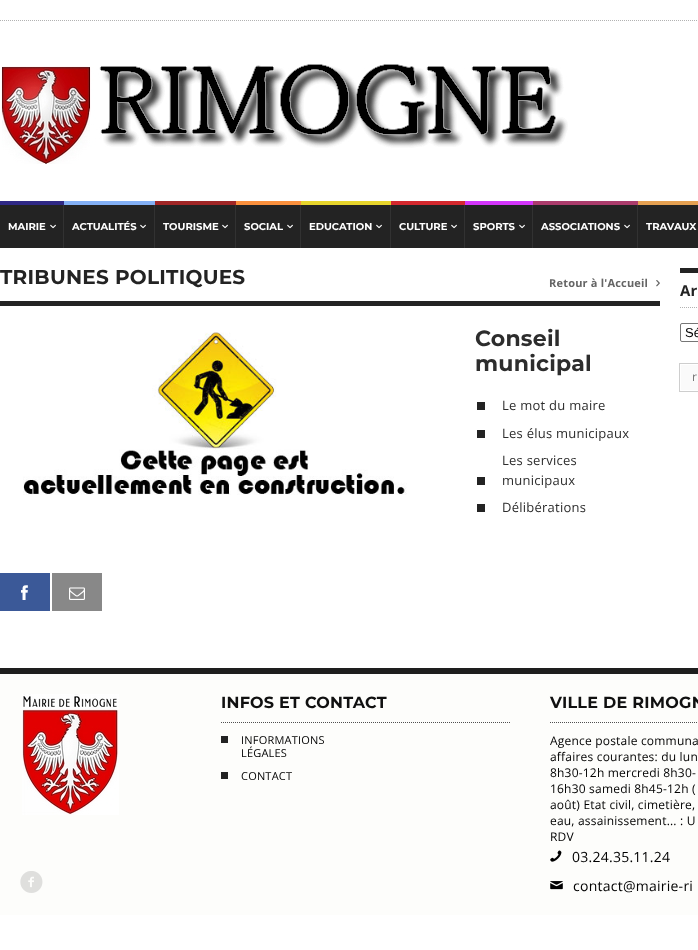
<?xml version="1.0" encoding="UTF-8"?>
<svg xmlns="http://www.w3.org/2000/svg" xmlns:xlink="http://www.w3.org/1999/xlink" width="698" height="950">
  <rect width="100%" height="100%" fill="#ffffff" />
  <path d="M 0 20.5 h 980" fill="none" stroke="#b2b2b2" stroke-dasharray="1 1" />
  <image x="1" y="64" width="567" height="100" xlink:href="image1.png" />
  <rect y="205" width="63" height="43" fill="#232323" />
  <rect x="63" y="205" width="1" height="43" fill="#323232" />
  <rect y="201" width="64" height="4" fill="#2f2885" />
  <image x="50" y="224" width="6" height="5" xlink:href="image2.png" />
  <rect x="64" y="205" width="90" height="43" fill="#232323" />
  <rect x="154" y="205" width="1" height="43" fill="#323232" />
  <rect x="64" y="201" width="91" height="4" fill="#83b0f5" />
  <image x="140" y="224" width="6" height="5" xlink:href="image2.png" />
  <rect x="155" y="205" width="80" height="43" fill="#232323" />
  <rect x="235" y="205" width="1" height="43" fill="#323232" />
  <rect x="155" y="201" width="81" height="4" fill="#a02626" />
  <image x="222" y="224" width="6" height="5" xlink:href="image2.png" />
  <rect x="236" y="205" width="64" height="43" fill="#232323" />
  <rect x="300" y="205" width="1" height="43" fill="#323232" />
  <rect x="236" y="201" width="65" height="4" fill="#fb903d" />
  <image x="287" y="224" width="6" height="5" xlink:href="image2.png" />
  <rect x="301" y="205" width="89" height="43" fill="#232323" />
  <rect x="390" y="205" width="1" height="43" fill="#323232" />
  <rect x="301" y="201" width="90" height="4" fill="#e7d52c" />
  <image x="376" y="224" width="6" height="5" xlink:href="image2.png" />
  <rect x="391" y="205" width="73" height="43" fill="#232323" />
  <rect x="464" y="205" width="1" height="43" fill="#323232" />
  <rect x="391" y="201" width="74" height="4" fill="#d4282e" />
  <image x="451" y="224" width="6" height="5" xlink:href="image2.png" />
  <rect x="465" y="205" width="67" height="43" fill="#232323" />
  <rect x="532" y="205" width="1" height="43" fill="#323232" />
  <rect x="465" y="201" width="68" height="4" fill="#d335fb" />
  <image x="519" y="224" width="6" height="5" xlink:href="image2.png" />
  <rect x="533" y="205" width="104" height="43" fill="#232323" />
  <rect x="637" y="205" width="1" height="43" fill="#323232" />
  <rect x="533" y="201" width="105" height="4" fill="#ab3c6c" />
  <image x="624" y="224" width="6" height="5" xlink:href="image2.png" />
  <rect x="638" y="205" width="60" height="43" fill="#232323" />
  <rect x="638" y="201" width="60" height="4" fill="#e5a152" />
  <rect y="301" width="660" height="5" fill="#232323" />
  <image x="656" y="280" width="4" height="7" xlink:href="image3.png" />
  <image x="23" y="332" width="384" height="163" xlink:href="image4.png" />
  <rect x="477" y="402" width="8" height="8" fill="#232323" />
  <rect x="477" y="430" width="8" height="8" fill="#232323" />
  <rect x="477" y="477" width="8" height="8" fill="#232323" />
  <rect x="477" y="504" width="8" height="8" fill="#232323" />
  <rect y="573" width="50" height="38" fill="#3b5998" />
  <image x="21" y="585" width="7" height="15" xlink:href="image5.png" />
  <rect x="52" y="573" width="50" height="38" fill="#888888" />
  <image x="69" y="587" width="16" height="13" xlink:href="image6.png" />
  <rect x="680" y="268" width="18" height="5" fill="#232323" />
  <path d="M 680 307.5 h 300" fill="none" stroke="#b2b2b2" stroke-dasharray="1 1" />
  <rect x="680.5" y="323.5" width="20" height="18" rx="1.5" fill="none" stroke="#767676" />
  <rect x="679.5" y="363.5" width="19" height="28" fill="none" stroke="#cecece" />
  <rect x="681" y="365" width="17" height="25" fill="#fafafa" />
  <rect y="668" width="698" height="6" fill="#1e1e1e" />
  <rect y="674" width="698" height="241" fill="#fdfdfb" />
  <image x="22" y="694" width="97" height="121" xlink:href="image7.png" />
  <image x="20" y="871" width="23" height="22" xlink:href="image8.png" />
  <path d="M 221 722.5 h 289" fill="none" stroke="#505050" stroke-dasharray="1 1" />
  <rect x="221" y="736" width="7" height="7" fill="#232323" />
  <rect x="221" y="772" width="7" height="7" fill="#232323" />
  <path d="M 550 722.5 h 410" fill="none" stroke="#505050" stroke-dasharray="1 1" />
  <image x="550" y="850" width="12" height="12" xlink:href="image9.png" />
  <image x="550" y="881" width="13" height="9" xlink:href="image10.png" />
  <text x="8" y="230" style="font-family: Montserrat; font-size: 10px; font-weight: bold; fill: #ffffff">MAIRIE</text>
  <text x="72" y="230" style="font-family: Montserrat; font-size: 10px; font-weight: bold; fill: #ffffff">ACTUALITÉS</text>
  <text x="163" y="230" style="font-family: Montserrat; font-size: 10px; font-weight: bold; fill: #ffffff">TOURISME</text>
  <text x="244" y="230" style="font-family: Montserrat; font-size: 10px; font-weight: bold; fill: #ffffff">SOCIAL</text>
  <text x="309" y="230" style="font-family: Montserrat; font-size: 10px; font-weight: bold; fill: #ffffff">EDUCATION</text>
  <text x="399" y="230" style="font-family: Montserrat; font-size: 10px; font-weight: bold; fill: #ffffff">CULTURE</text>
  <text x="473" y="230" style="font-family: Montserrat; font-size: 10px; font-weight: bold; fill: #ffffff">SPORTS</text>
  <text x="541" y="230" style="font-family: Montserrat; font-size: 10px; font-weight: bold; fill: #ffffff">ASSOCIATIONS</text>
  <text x="646" y="230" style="font-family: Montserrat; font-size: 10px; font-weight: bold; fill: #ffffff">TRAVAUX</text>
  <text x="0" y="284" style="font-family: Montserrat; font-size: 20px; font-weight: bold; letter-spacing: 0.25px; fill: #232323">TRIBUNES POLITIQUES</text>
  <text x="549" y="287" style="font-family: Open Sans; font-size: 11px; font-weight: bold; letter-spacing: 0.2px; fill: #656565">Retour à l'Accueil</text>
  <text x="475" y="346" style="font-family: Montserrat; font-size: 22px; font-weight: bold; letter-spacing: 0.25px; fill: #2d2d2d">Conseil</text>
  <text x="475" y="371" style="font-family: Montserrat; font-size: 22px; font-weight: bold; letter-spacing: 0.25px; fill: #2d2d2d">municipal</text>
  <text x="502" y="410" style="font-family: Open Sans; font-size: 13px; letter-spacing: 0.25px; fill: #2d2d2d">Le mot du maire</text>
  <text x="502" y="438" style="font-family: Open Sans; font-size: 13px; letter-spacing: 0.25px; fill: #2d2d2d">Les élus municipaux</text>
  <text x="502" y="465" style="font-family: Open Sans; font-size: 13px; letter-spacing: 0.25px; fill: #2d2d2d">Les services</text>
  <text x="502" y="485" style="font-family: Open Sans; font-size: 13px; letter-spacing: 0.25px; fill: #2d2d2d">municipaux</text>
  <text x="502" y="512" style="font-family: Open Sans; font-size: 13px; letter-spacing: 0.25px; fill: #2d2d2d">Délibérations</text>
  <text x="680" y="296" style="font-family: Open Sans; font-size: 15px; font-weight: bold; letter-spacing: 0.25px; fill: #232323">Ar</text>
  <text x="685" y="337" style="font-family: Liberation Sans; font-size: 13px; fill: #000000">Sé</text>
  <text x="692" y="381" style="font-family: Open Sans; font-size: 12px; fill: #757575">r</text>
  <text x="221" y="708" style="font-family: Montserrat; font-size: 16px; font-weight: bold; letter-spacing: 0.25px; fill: #101010">INFOS ET CONTACT</text>
  <text x="241" y="744" style="font-family: Open Sans; font-size: 11px; letter-spacing: 0.2px; fill: #000000">INFORMATIONS</text>
  <text x="241" y="757" style="font-family: Open Sans; font-size: 11px; letter-spacing: 0.2px; fill: #000000">LÉGALES</text>
  <text x="241" y="780" style="font-family: Open Sans; font-size: 11px; letter-spacing: 0.2px; fill: #000000">CONTACT</text>
  <text x="550" y="708" style="font-family: Montserrat; font-size: 16px; font-weight: bold; letter-spacing: 0.25px; fill: #101010">VILLE DE RIMOGN</text>
  <text x="550" y="745" style="font-family: Open Sans; font-size: 12px; letter-spacing: 0.2px; fill: #000000">Agence postale communa</text>
  <text x="550" y="761" style="font-family: Open Sans; font-size: 12px; letter-spacing: 0.2px; fill: #000000">affaires courantes: du lun</text>
  <text x="550" y="777" style="font-family: Open Sans; font-size: 12px; letter-spacing: 0.2px; fill: #000000">8h30-12h mercredi 8h30-</text>
  <text x="550" y="793" style="font-family: Open Sans; font-size: 12px; letter-spacing: 0.2px; fill: #000000">16h30 samedi 8h45-12h (</text>
  <text x="550" y="809" style="font-family: Open Sans; font-size: 12px; letter-spacing: 0.2px; fill: #000000">août) Etat civil, cimetière,</text>
  <text x="550" y="825" style="font-family: Open Sans; font-size: 12px; letter-spacing: 0.2px; fill: #000000">eau, assainissement... : U</text>
  <text x="550" y="841" style="font-family: Open Sans; font-size: 12px; letter-spacing: 0.2px; fill: #000000">RDV</text>
  <text x="572" y="862" style="font-family: Open Sans; font-size: 14px; letter-spacing: 0.25px; fill: #000000">03.24.35.11.24</text>
  <text x="573" y="891" style="font-family: Open Sans; font-size: 14px; letter-spacing: 0.25px; fill: #000000">contact@mairie-ri</text>
</svg>
